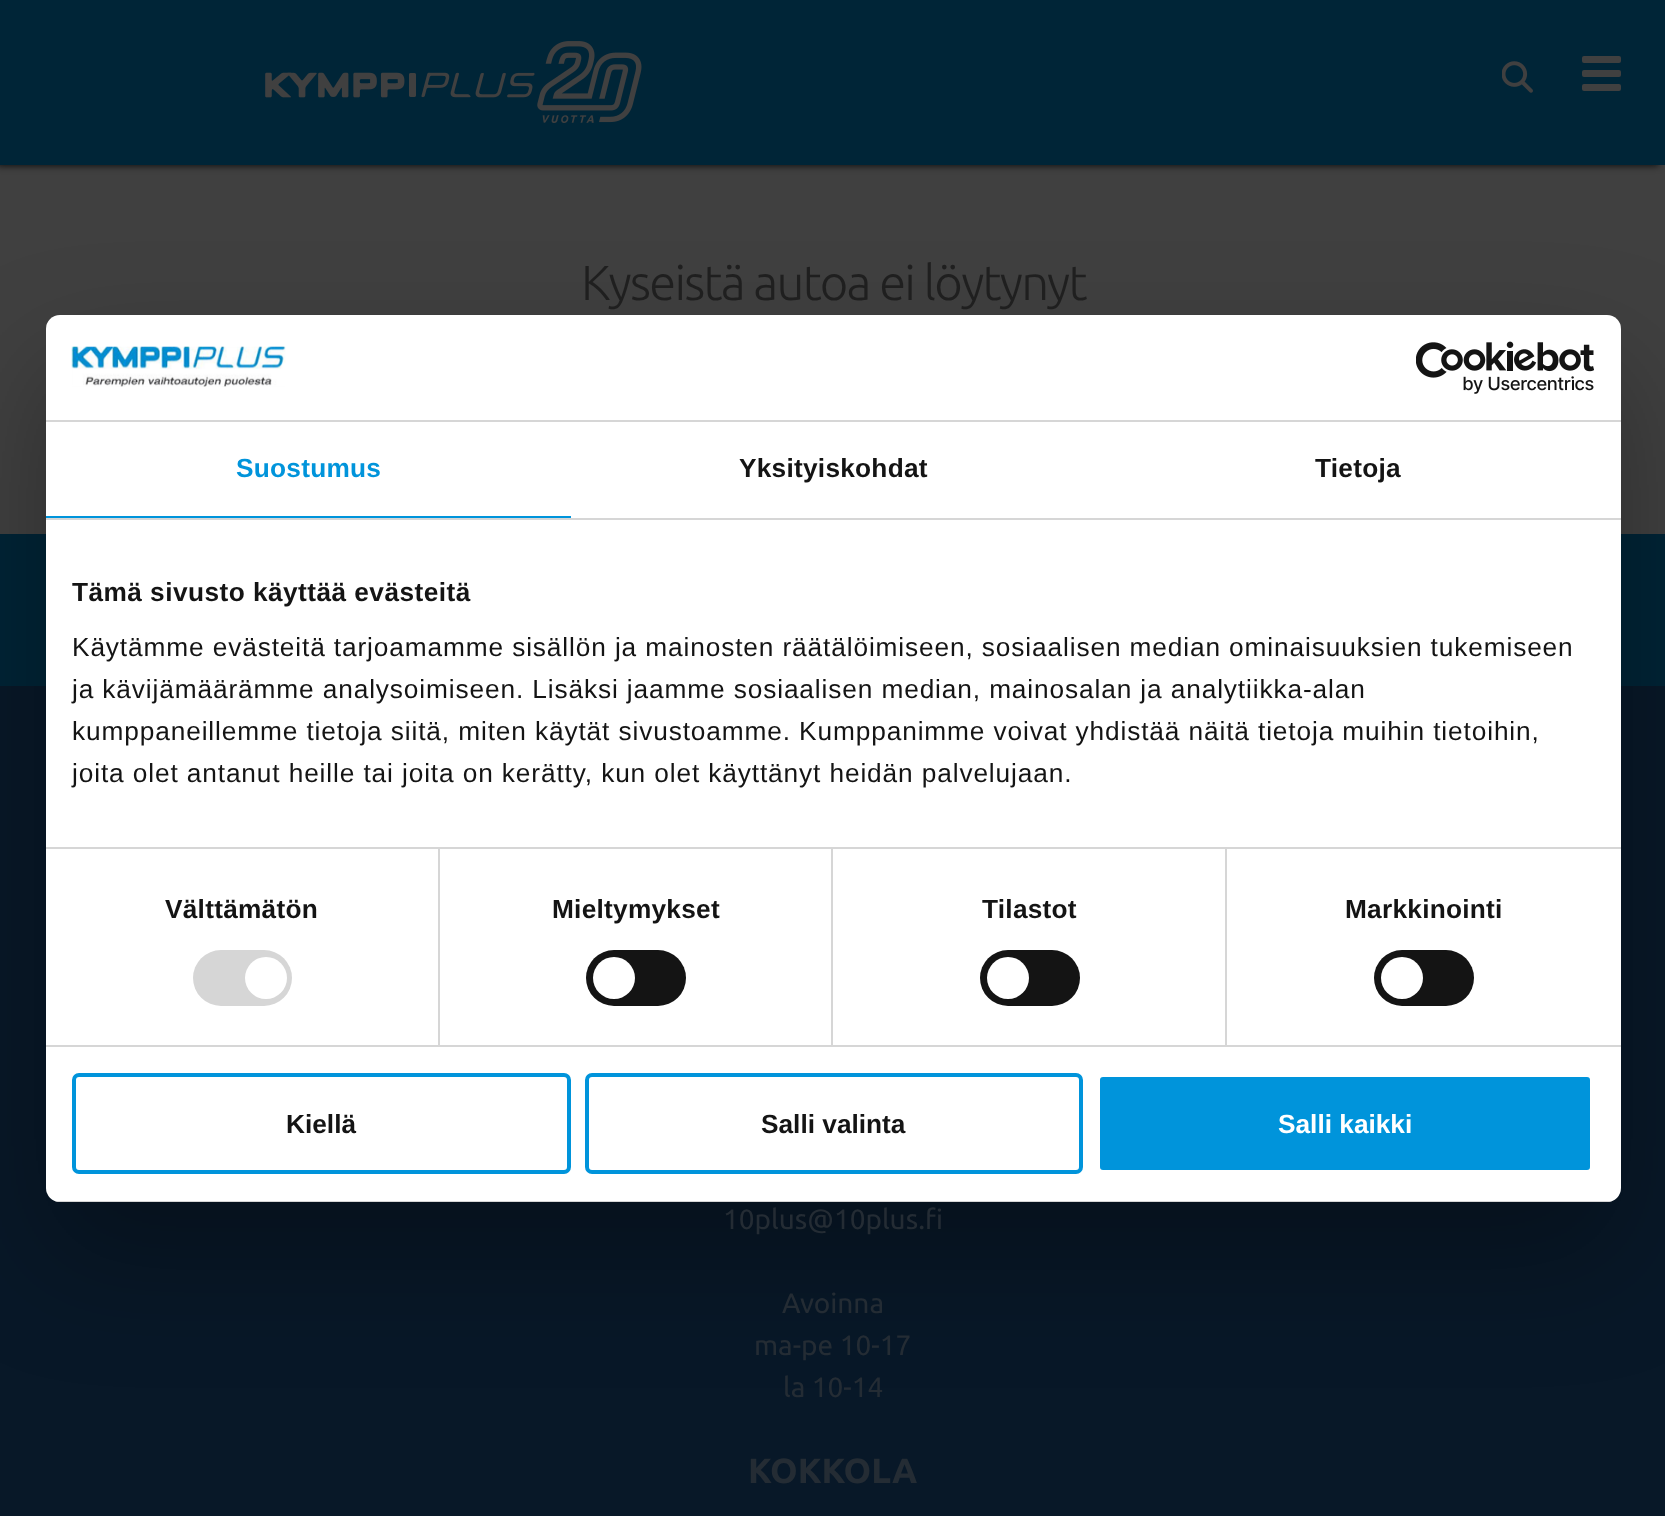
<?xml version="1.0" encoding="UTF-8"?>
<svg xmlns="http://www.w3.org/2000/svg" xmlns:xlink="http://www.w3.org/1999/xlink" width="1665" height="1516">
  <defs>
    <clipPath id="clip1"><rect x="46" y="315" width="1575" height="887" rx="14" /></clipPath>
  </defs>
  <rect width="100%" height="100%" fill="#404040" />
  <rect x="-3" y="5" width="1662" height="161" fill="#000000" fill-opacity="0.75" filter="blur(3.5px)" />
  <rect width="1665" height="165" fill="#002537" />
  <image x="265" y="41" width="377" height="82" xlink:href="image1.png" />
  <image x="1502" y="61" width="31" height="32" xlink:href="image2.png" />
  <rect x="1582" y="56" width="39" height="7" rx="2" fill="#404040" />
  <rect x="1582" y="70" width="39" height="7" rx="2" fill="#404040" />
  <rect x="1582" y="84" width="39" height="7" rx="2" fill="#404040" />
  <rect y="534" width="1665" height="152" fill="#002436" />
  <rect y="686" width="1665" height="830" fill="#081828" />
  <rect x="46" y="371" width="1575" height="887" rx="14" fill="#000000" fill-opacity="0.3" filter="blur(59.5px)" />
  <rect x="46" y="315" width="1575" height="887" rx="14" fill="#ffffff" />
  <rect x="46" y="420" width="1575" height="2" fill="#d6d6d6" />
  <image x="71" y="346" width="215" height="41" xlink:href="image3.png" />
  <image x="1416" y="341" width="178" height="53" xlink:href="image4.png" />
  <rect x="46" y="518" width="1575" height="2" fill="#d6d6d6" />
  <rect x="46" y="516" width="525" height="2" fill="#0094db" />
  <rect x="46" y="847" width="1575" height="2" fill="#d6d6d6" />
  <rect x="46" y="1045" width="1575" height="2" fill="#d6d6d6" />
  <rect x="438" y="849" width="2" height="196" fill="#d6d6d6" />
  <rect x="193" y="950" width="99" height="56" rx="28" fill="#d6d6d6" />
  <circle cx="266" cy="978" r="21" fill="#ffffff" />
  <rect x="831" y="849" width="2" height="196" fill="#d6d6d6" />
  <rect x="586" y="950" width="100" height="56" rx="28" fill="#141414" />
  <circle cx="614" cy="978" r="21" fill="#ffffff" />
  <rect x="1225" y="849" width="2" height="196" fill="#d6d6d6" />
  <rect x="980" y="950" width="100" height="56" rx="28" fill="#141414" />
  <circle cx="1008" cy="978" r="21" fill="#ffffff" />
  <rect x="1374" y="950" width="100" height="56" rx="28" fill="#141414" />
  <circle cx="1402" cy="978" r="21" fill="#ffffff" />
  <g clip-path="url(#clip1)">
    <rect x="55" y="1201" width="1557" height="1" fill="#d6d6d6" />
  </g>
  <rect x="74" y="1075" width="495" height="97" rx="5" fill="none" stroke="#0094db" stroke-width="4" />
  <rect x="587" y="1075" width="494" height="97" rx="5" fill="none" stroke="#0094db" stroke-width="4" />
  <rect x="1098" y="1075" width="494" height="97" rx="5" fill="#0094db" stroke="#ffffff" stroke-width="4" />
  <text x="581" y="300" style="font-family: Ubuntu; font-size: 49px; font-weight: 300; letter-spacing: -1.75px; fill: #1f1f1f">Kyseistä autoa ei löytynyt</text>
  <text x="236" y="477" style="font-family: Liberation Sans; font-size: 26.25px; font-weight: bold; letter-spacing: 0.25px; fill: #0094db">Suostumus</text>
  <text x="739" y="477" style="font-family: Liberation Sans; font-size: 26.25px; font-weight: bold; letter-spacing: 0.25px; fill: #141414">Yksityiskohdat</text>
  <text x="1315" y="477" style="font-family: Liberation Sans; font-size: 26.25px; font-weight: bold; letter-spacing: 0.25px; fill: #141414">Tietoja</text>
  <text x="72" y="601" style="font-family: Liberation Sans; font-size: 26.25px; font-weight: bold; letter-spacing: 0.45px; fill: #141414">Tämä sivusto käyttää evästeitä</text>
  <text x="72" y="656" style="font-family: Liberation Sans; font-size: 26.25px; letter-spacing: 0.88px; fill: #141414">Käytämme evästeitä tarjoamamme sisällön ja mainosten räätälöimiseen, sosiaalisen median ominaisuuksien tukemiseen</text>
  <text x="72" y="698" style="font-family: Liberation Sans; font-size: 26.25px; letter-spacing: 0.88px; fill: #141414">ja kävijämäärämme analysoimiseen. Lisäksi jaamme sosiaalisen median, mainosalan ja analytiikka-alan</text>
  <text x="72" y="740" style="font-family: Liberation Sans; font-size: 26.25px; letter-spacing: 0.88px; fill: #141414">kumppaneillemme tietoja siitä, miten käytät sivustoamme. Kumppanimme voivat yhdistää näitä tietoja muihin tietoihin,</text>
  <text x="72" y="782" style="font-family: Liberation Sans; font-size: 26.25px; letter-spacing: 0.88px; fill: #141414">joita olet antanut heille tai joita on kerätty, kun olet käyttänyt heidän palvelujaan.</text>
  <text x="165" y="918" style="font-family: Liberation Sans; font-size: 26.25px; font-weight: bold; letter-spacing: 0.25px; fill: #141414">Välttämätön</text>
  <text x="552" y="918" style="font-family: Liberation Sans; font-size: 26.25px; font-weight: bold; letter-spacing: 0.25px; fill: #141414">Mieltymykset</text>
  <text x="982" y="918" style="font-family: Liberation Sans; font-size: 26.25px; font-weight: bold; letter-spacing: 0.25px; fill: #141414">Tilastot</text>
  <text x="1345" y="918" style="font-family: Liberation Sans; font-size: 26.25px; font-weight: bold; letter-spacing: 0.25px; fill: #141414">Markkinointi</text>
  <text x="286" y="1133" style="font-family: Liberation Sans; font-size: 26.25px; font-weight: bold; fill: #141414">Kiellä</text>
  <text x="761" y="1133" style="font-family: Liberation Sans; font-size: 26.25px; font-weight: bold; fill: #141414">Salli valinta</text>
  <text x="1278" y="1133" style="font-family: Liberation Sans; font-size: 26.25px; font-weight: bold; fill: #ffffff">Salli kaikki</text>
  <text x="723" y="1229" style="font-family: Ubuntu; font-size: 28px; fill: #242c34">10plus@10plus.fi</text>
  <text x="782" y="1313" style="font-family: Ubuntu; font-size: 28px; fill: #242c34">Avoinna</text>
  <text x="754" y="1355" style="font-family: Ubuntu; font-size: 28px; fill: #242c34">ma-pe 10-17</text>
  <text x="783" y="1397" style="font-family: Ubuntu; font-size: 28px; fill: #242c34">la 10-14</text>
  <text x="748" y="1483" style="font-family: Ubuntu; font-size: 35px; font-weight: bold; fill: #242c34">KOKKOLA</text>
</svg>
